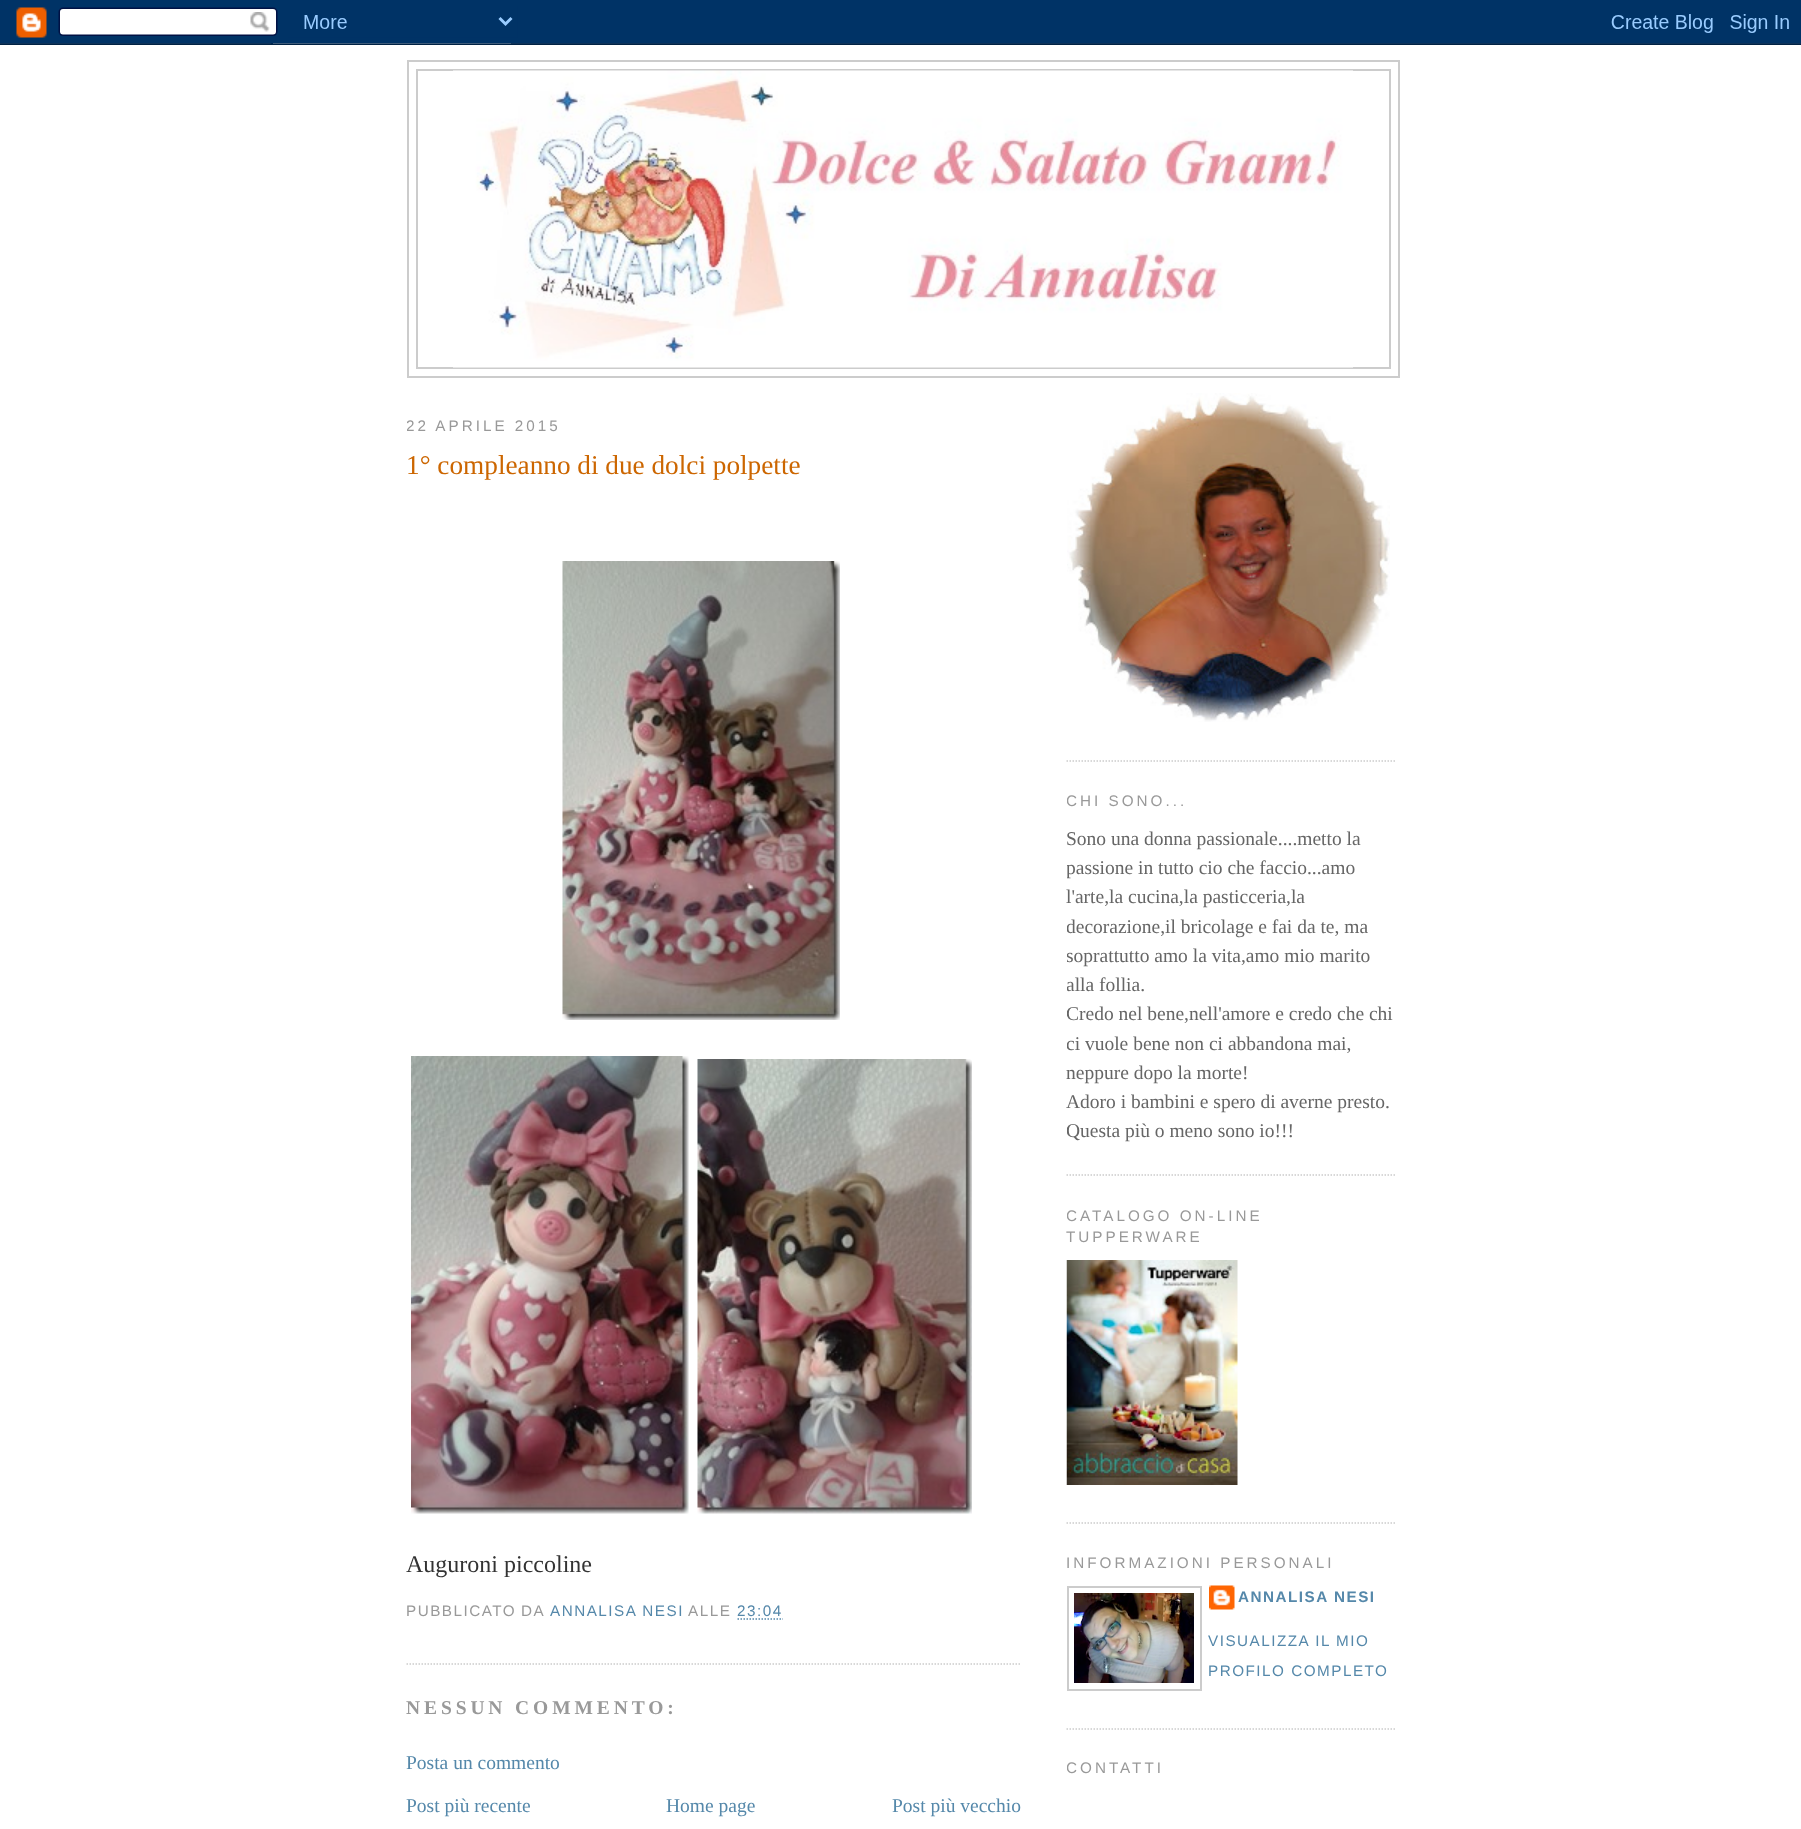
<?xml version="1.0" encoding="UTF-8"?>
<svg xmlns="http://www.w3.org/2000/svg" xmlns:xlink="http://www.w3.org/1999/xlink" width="1801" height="1829">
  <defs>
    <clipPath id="clip1"><rect x="407" y="393" width="615" height="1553" /></clipPath>
    <clipPath id="clip2"><rect x="1067" y="393" width="330" height="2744" /></clipPath>
  </defs>
  <rect width="100%" height="100%" fill="#ffffff" />
  <image x="0" y="0" width="1801" height="45" xlink:href="image1.png" />
  <rect x="408" y="61" width="991" height="316" fill="none" stroke="#cccccc" stroke-width="2" />
  <rect x="417" y="70" width="973" height="298" fill="none" stroke="#cccccc" stroke-width="2" />
  <image x="453" y="70" width="900" height="298" xlink:href="image2.png" />
  <path d="M 406.5 1664 h 615" fill="none" stroke="#cccccc" stroke-width="1.5" stroke-dasharray="1.5 1.5" />
  <image x="562" y="561" width="278" height="459" xlink:href="image3.png" />
  <image x="411" y="1056" width="278" height="458" xlink:href="image4.png" />
  <image x="697" y="1059" width="275" height="455" xlink:href="image5.png" />
  <path d="M 737.5 1619 h 45.5" fill="none" stroke="#5588aa" stroke-width="1.5" stroke-dasharray="1.5 1.5" />
  <path d="M 1066.5 761 h 330" fill="none" stroke="#cccccc" stroke-width="1.5" stroke-dasharray="1.5 1.5" />
  <image x="1067" y="393" width="323" height="329" xlink:href="image6.png" />
  <path d="M 1066.5 1175 h 330" fill="none" stroke="#cccccc" stroke-width="1.5" stroke-dasharray="1.5 1.5" />
  <path d="M 1066.5 1523 h 330" fill="none" stroke="#cccccc" stroke-width="1.5" stroke-dasharray="1.5 1.5" />
  <image x="1066" y="1260" width="172" height="225" xlink:href="image7.png" />
  <path d="M 1066.5 1729 h 330" fill="none" stroke="#cccccc" stroke-width="1.5" stroke-dasharray="1.5 1.5" />
  <rect x="1068" y="1587" width="133" height="103" fill="none" stroke="#cccccc" stroke-width="2" />
  <image x="1074" y="1593" width="120" height="90" xlink:href="image8.png" />
  <image x="1209" y="1585" width="26" height="25" xlink:href="image9.png" />
  <g clip-path="url(#clip1)">
    <text x="406" y="431" style="font-family: Liberation Sans; font-size: 15.25px; letter-spacing: 3px; fill: #999999">22 APRILE 2015</text>
  </g>
  <text x="406" y="474" style="font-family: Liberation Serif; font-size: 27.25px; fill: #cc6600">1° compleanno di due dolci polpette</text>
  <text x="406" y="1572" style="font-family: Liberation Serif; font-size: 24px; fill: #333333">Auguroni piccoline</text>
  <text x="406" y="1616" word-spacing="-1" style="font-family: Liberation Sans; font-size: 15.25px; letter-spacing: 1.5px; fill: #999999">PUBBLICATO DA</text>
  <text x="550" y="1616" style="font-family: Liberation Sans; font-size: 15.25px; letter-spacing: 1.5px; fill: #5588aa">ANNALISA NESI</text>
  <text x="688" y="1616" style="font-family: Liberation Sans; font-size: 15.25px; letter-spacing: 1.5px; fill: #999999">ALLE</text>
  <text x="737" y="1616" style="font-family: Liberation Sans; font-size: 15.25px; letter-spacing: 1.5px; fill: #5588aa">23:04</text>
  <text x="406" y="1714" style="font-family: Liberation Serif; font-size: 19.5px; font-weight: bold; letter-spacing: 3.9px; fill: #999999">NESSUN COMMENTO:</text>
  <text x="406" y="1769" style="font-family: Liberation Serif; font-size: 19.5px; fill: #5588aa">Posta un commento</text>
  <text x="406" y="1812" style="font-family: Liberation Serif; font-size: 19.5px; fill: #5588aa">Post più recente</text>
  <text x="666" y="1812" style="font-family: Liberation Serif; font-size: 19.5px; fill: #5588aa">Home page</text>
  <text x="892" y="1812" style="font-family: Liberation Serif; font-size: 19.5px; fill: #5588aa">Post più vecchio</text>
  <g clip-path="url(#clip2)">
    <text x="1066" y="806" style="font-family: Liberation Sans; font-size: 15.25px; letter-spacing: 3px; fill: #999999">CHI SONO...</text>
  </g>
  <text x="1066" y="845" style="font-family: Liberation Serif; font-size: 19.5px; fill: #666666">Sono una donna passionale....metto la</text>
  <g clip-path="url(#clip2)">
    <text x="1066" y="874" style="font-family: Liberation Serif; font-size: 19.5px; fill: #666666">passione in tutto cio che faccio...amo</text>
  </g>
  <text x="1066" y="903" style="font-family: Liberation Serif; font-size: 19.5px; fill: #666666">l'arte,la cucina,la pasticceria,la</text>
  <g clip-path="url(#clip2)">
    <text x="1066" y="933" style="font-family: Liberation Serif; font-size: 19.5px; fill: #666666">decorazione,il bricolage e fai da te, ma</text>
    <text x="1066" y="962" style="font-family: Liberation Serif; font-size: 19.5px; fill: #666666">soprattutto amo la vita,amo mio marito</text>
    <text x="1066" y="991" style="font-family: Liberation Serif; font-size: 19.5px; fill: #666666">alla follia.</text>
    <text x="1066" y="1020" style="font-family: Liberation Serif; font-size: 19.5px; fill: #666666">Credo nel bene,nell'amore e credo che chi</text>
    <text x="1066" y="1050" style="font-family: Liberation Serif; font-size: 19.5px; fill: #666666">ci vuole bene non ci abbandona mai,</text>
  </g>
  <text x="1066" y="1079" style="font-family: Liberation Serif; font-size: 19.5px; fill: #666666">neppure dopo la morte!</text>
  <text x="1066" y="1108" style="font-family: Liberation Serif; font-size: 19.5px; fill: #666666">Adoro i bambini e spero di averne presto.</text>
  <g clip-path="url(#clip2)">
    <text x="1066" y="1137" style="font-family: Liberation Serif; font-size: 19.5px; fill: #666666">Questa più o meno sono io!!!</text>
    <text x="1066" y="1221" style="font-family: Liberation Sans; font-size: 15.25px; letter-spacing: 3px; fill: #999999">CATALOGO ON-LINE</text>
  </g>
  <text x="1066" y="1242" style="font-family: Liberation Sans; font-size: 15.25px; letter-spacing: 3px; fill: #999999">TUPPERWARE</text>
  <text x="1066" y="1568" style="font-family: Liberation Sans; font-size: 15.25px; letter-spacing: 3px; fill: #999999">INFORMAZIONI PERSONALI</text>
  <text x="1238" y="1602" style="font-family: Liberation Sans; font-size: 15.25px; font-weight: bold; letter-spacing: 1.5px; fill: #5588aa">ANNALISA NESI</text>
  <text x="1208" y="1646" style="font-family: Liberation Sans; font-size: 15.25px; letter-spacing: 1.5px; fill: #5588aa">VISUALIZZA IL MIO</text>
  <text x="1208" y="1676" style="font-family: Liberation Sans; font-size: 15.25px; letter-spacing: 1.5px; fill: #5588aa">PROFILO COMPLETO</text>
  <g clip-path="url(#clip2)">
    <text x="1066" y="1773" style="font-family: Liberation Sans; font-size: 15.25px; letter-spacing: 3px; fill: #999999">CONTATTI</text>
  </g>
</svg>
